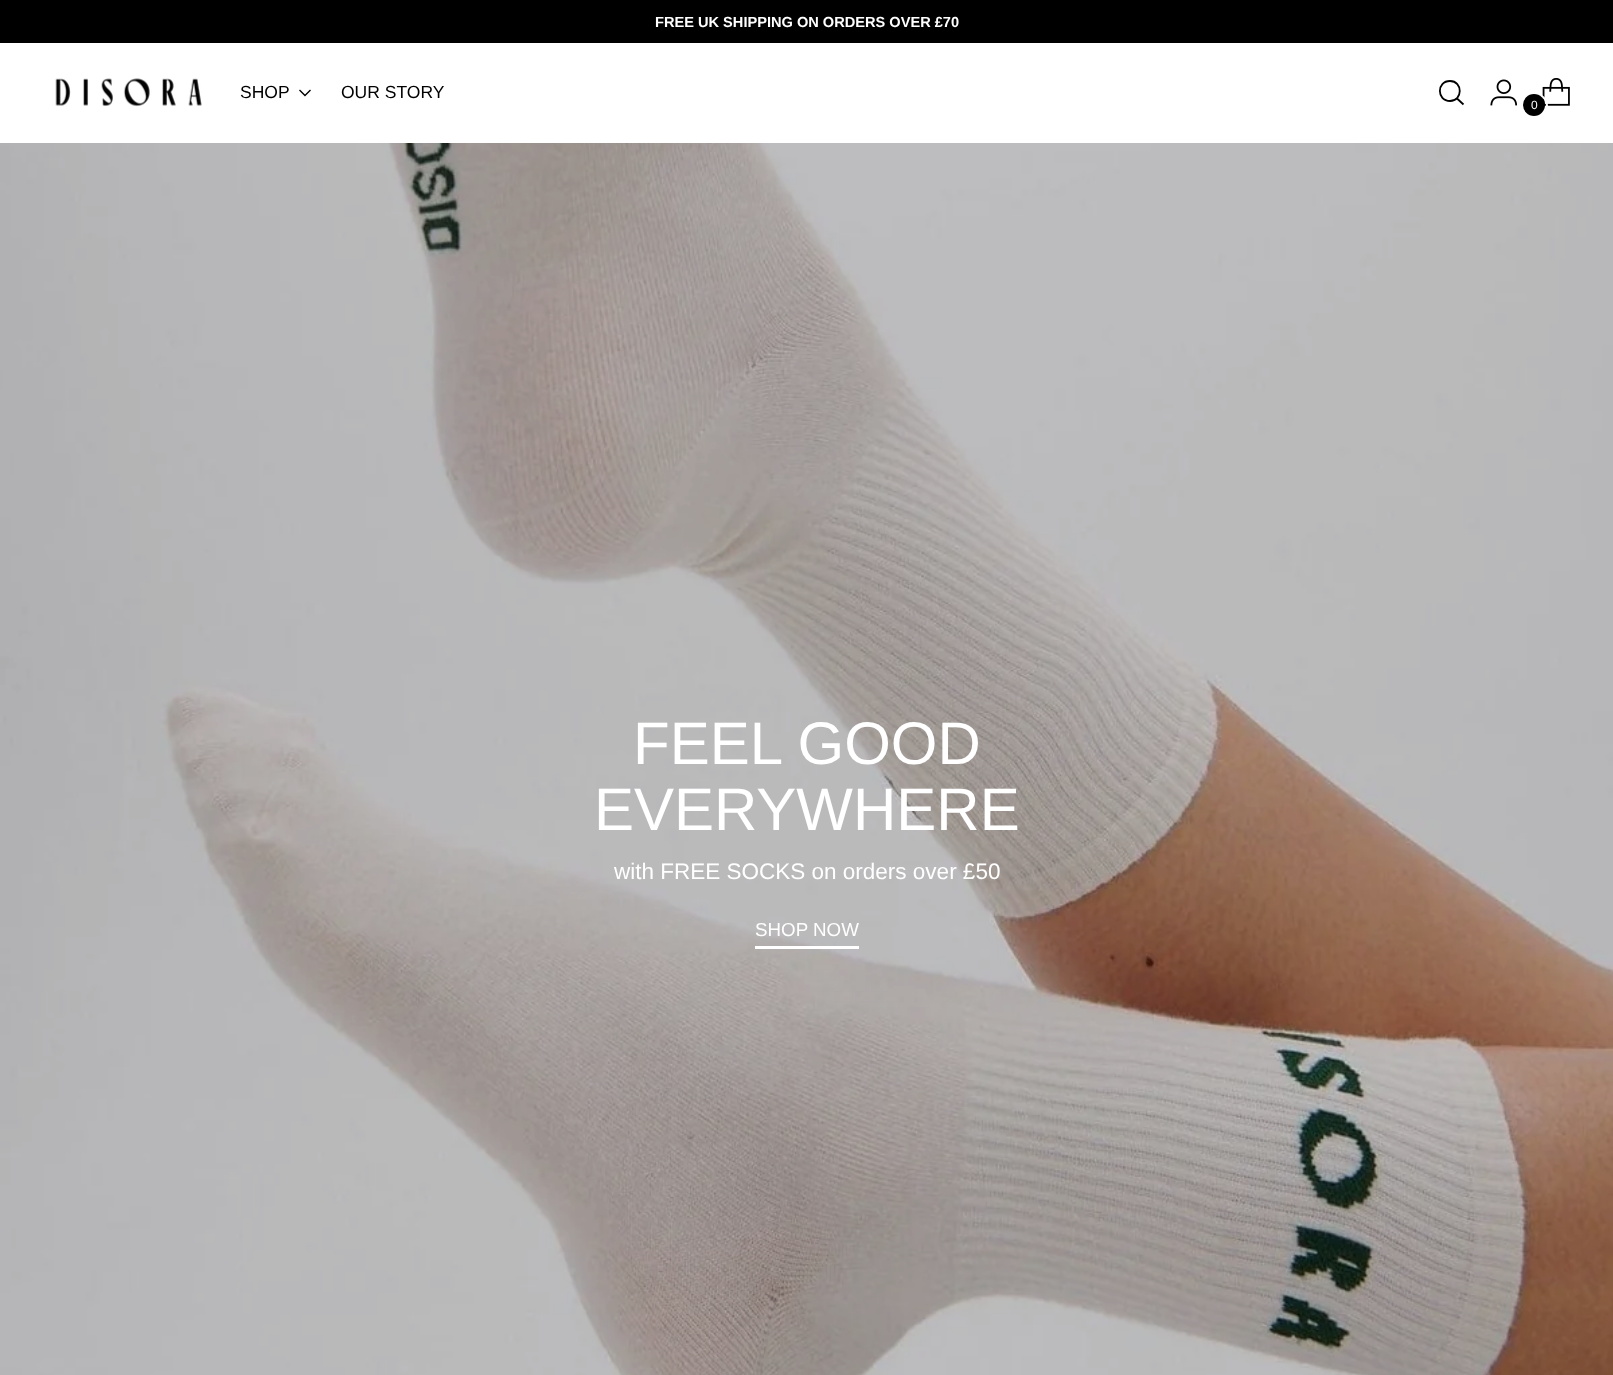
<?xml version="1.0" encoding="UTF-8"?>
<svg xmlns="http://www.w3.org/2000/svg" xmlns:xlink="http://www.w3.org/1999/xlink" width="1613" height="1375">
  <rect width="100%" height="100%" fill="#ffffff" />
  <rect width="1613" height="43" fill="#000000" />
  <image x="55" y="78" width="147" height="29" xlink:href="image1.png" />
  <path d="M 299.5 90 l 5.5 5.5 l 5.5 -5.5" fill="none" stroke="#000000" stroke-width="1.4" />
  <path d="M 1450 101 c 13 0 13 -20 0 -20 c -13.5 0 -13.5 20 0 20 z" fill="none" stroke="#000000" stroke-width="1.8" stroke-linecap="round" />
  <path d="M 1457 98.5 l 6.5 6" fill="none" stroke="#000000" stroke-width="1.8" />
  <image x="1490" y="79" width="27" height="27" xlink:href="image2.png" />
  <image x="1542" y="78" width="28" height="28" xlink:href="image3.png" />
  <rect x="1522" y="94" width="25" height="24" rx="12" fill="none" stroke="#ffffff" stroke-width="2" />
  <circle cx="1534" cy="105" r="11" fill="#000000" />
  <image x="0" y="143" width="1613" height="1232" xlink:href="image4.png" />
  <rect x="755" y="946" width="104" height="3" fill="#ffffff" />
  <text x="655" y="27" style="font-family: Liberation Sans; font-size: 14.6px; font-weight: bold; fill: #ffffff">FREE UK SHIPPING ON ORDERS OVER £70</text>
  <text x="240" y="98" style="font-family: Liberation Sans; font-size: 17.5px; fill: #000000">SHOP</text>
  <text x="341" y="98" style="font-family: Liberation Sans; font-size: 17.5px; fill: #000000">OUR STORY</text>
  <text x="1531" y="109" style="font-family: Liberation Sans; font-size: 12px; fill: #ffffff">0</text>
  <text x="633" y="764" style="font-family: Liberation Sans; font-size: 60px; fill: #ffffff">FEEL GOOD</text>
  <text x="594" y="830" style="font-family: Liberation Sans; font-size: 60px; fill: #ffffff">EVERYWHERE</text>
  <text x="614" y="879" style="font-family: Liberation Sans; font-size: 22.5px; fill: #ffffff">with FREE SOCKS on orders over £50</text>
  <text x="755" y="936" style="font-family: Liberation Sans; font-size: 18.75px; fill: #ffffff">SHOP NOW</text>
</svg>
